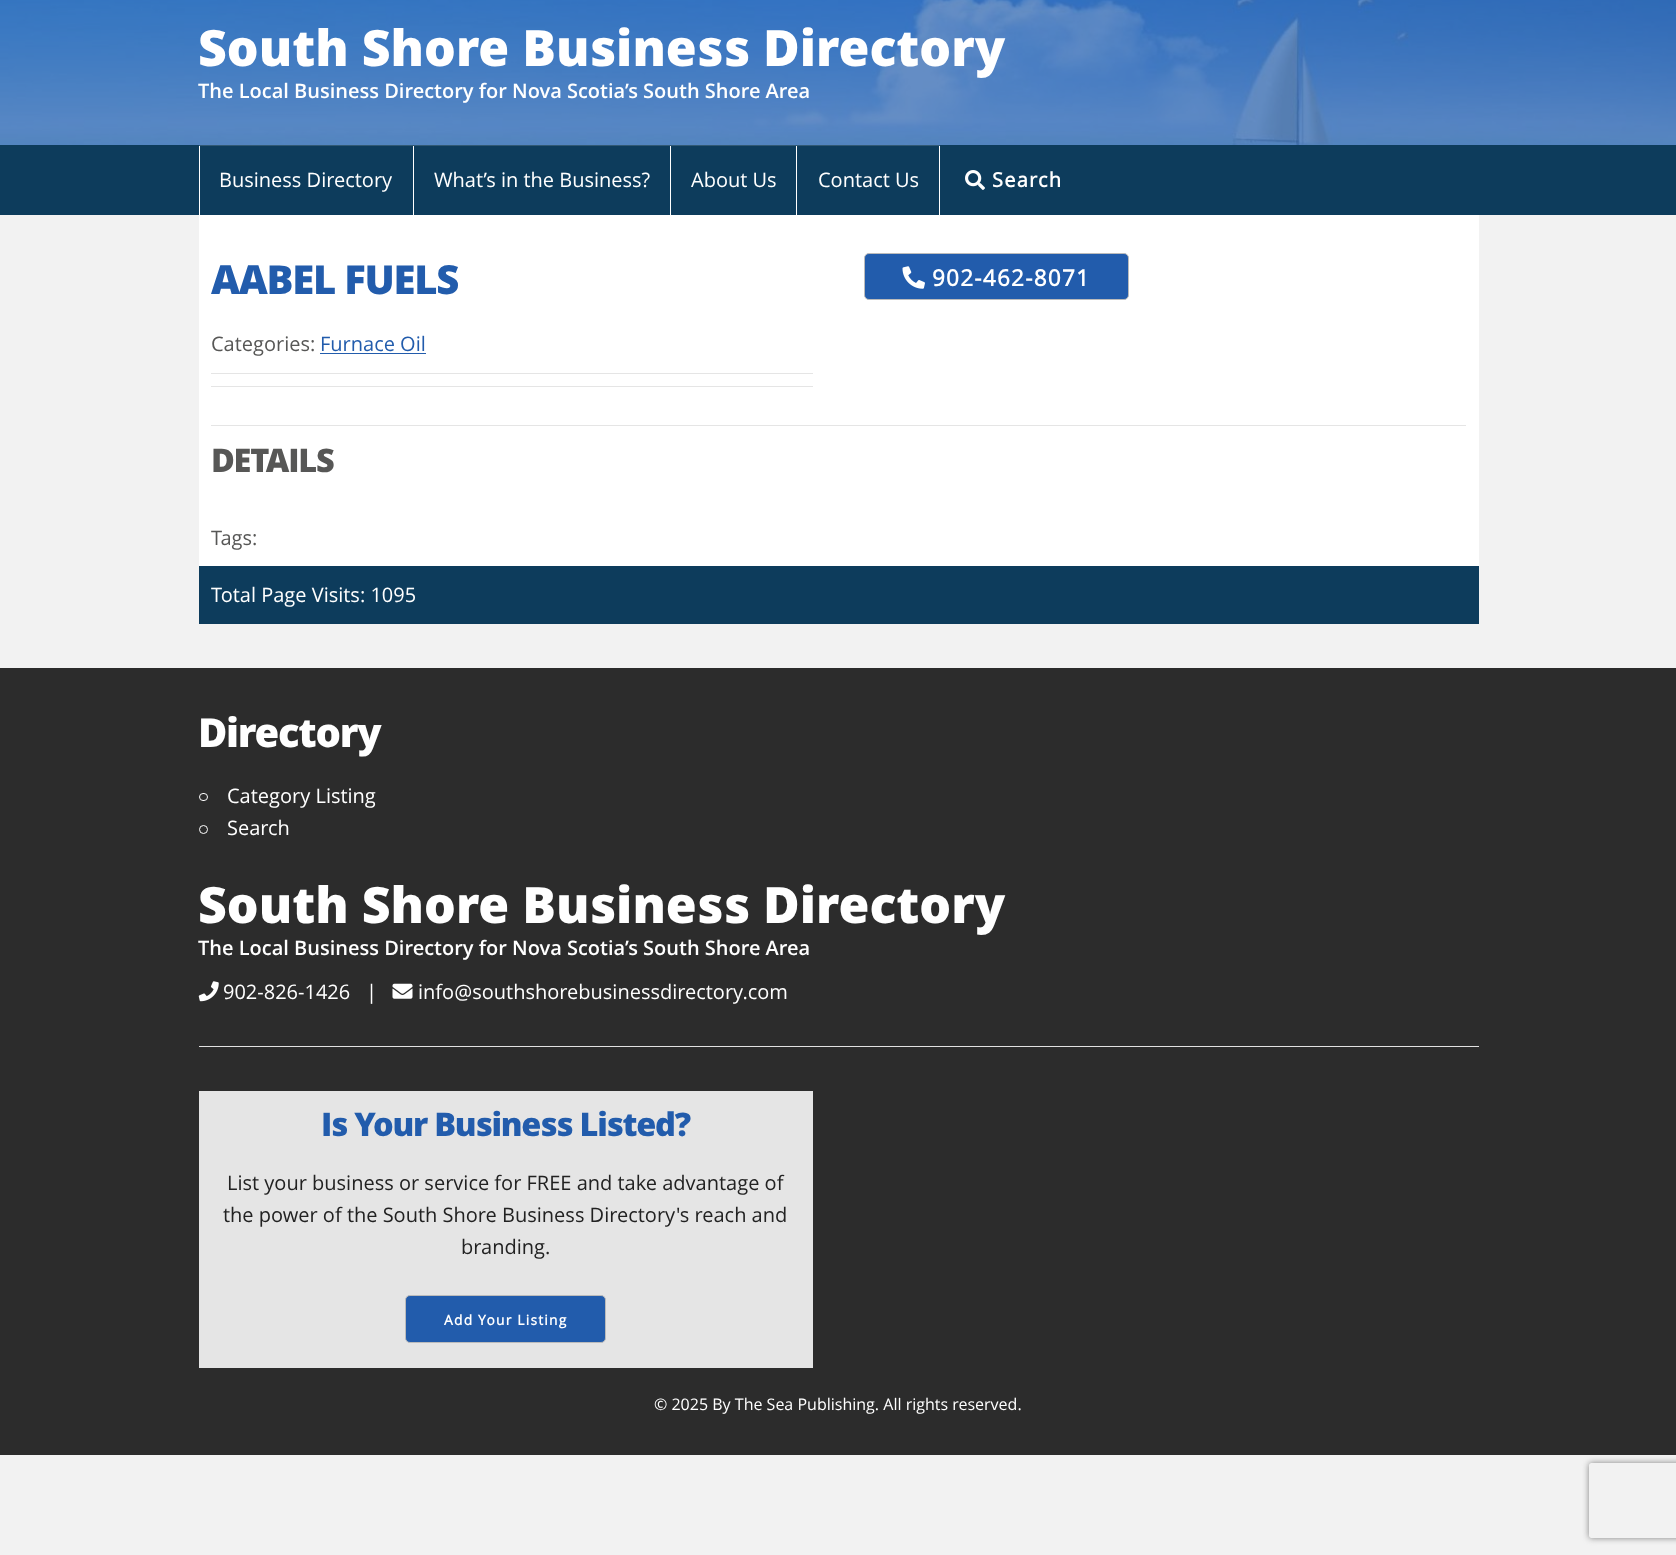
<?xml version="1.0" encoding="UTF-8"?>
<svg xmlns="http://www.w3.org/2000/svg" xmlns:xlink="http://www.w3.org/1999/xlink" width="1676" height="1555">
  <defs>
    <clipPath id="clip1"><path d="M 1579 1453 h 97 v 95 h -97 z m 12.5 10 h 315 c 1.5 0 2.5 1 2.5 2.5 v 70 c 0 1.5 -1 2.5 -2.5 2.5 h -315 c -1.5 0 -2.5 -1 -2.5 -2.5 v -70 c 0 -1.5 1 -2.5 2.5 -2.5 z" clip-rule="evenodd" /></clipPath>
  </defs>
  <rect width="100%" height="100%" fill="#f2f2f2" />
  <image x="0" y="0" width="1676" height="145" xlink:href="image1.png" />
  <rect width="1676" height="145" fill="#225cac" fill-opacity="0.7" />
  <rect y="145" width="1676" height="70" fill="#0d3c5c" />
  <rect x="199" y="145" width="741" height="1" fill="#315974" />
  <rect x="413" y="146" width="1" height="69" fill="#ffffff" />
  <rect x="199" y="146" width="1" height="69" fill="#ffffff" />
  <rect x="670" y="146" width="1" height="69" fill="#ffffff" />
  <rect x="796" y="146" width="1" height="69" fill="#ffffff" />
  <rect x="939" y="146" width="1" height="69" fill="#ffffff" />
  <image x="965" y="170" width="20" height="20" xlink:href="image2.png" />
  <rect x="199" y="215" width="1280" height="351" fill="#ffffff" />
  <rect x="320" y="353" width="106" height="1" fill="#225cac" />
  <rect x="211" y="373" width="602" height="1" fill="#e5e5e5" />
  <rect x="211" y="386" width="602" height="1" fill="#e5e5e5" />
  <rect x="864.5" y="253.5" width="264" height="46" rx="4.5" fill="#225cac" stroke="#bbbbbb" />
  <image x="902" y="266" width="23" height="23" xlink:href="image3.png" />
  <rect x="211" y="425" width="1255" height="1" fill="#e5e5e5" />
  <rect x="199" y="566" width="1280" height="58" fill="#0d3c5c" />
  <rect y="668" width="1676" height="787" fill="#2c2c2c" />
  <rect x="199.5" y="793.5" width="8" height="7" rx="3.5" fill="none" stroke="#ffffff" />
  <circle cx="203.5" cy="829.5" r="4" fill="none" stroke="#ffffff" />
  <image x="198" y="981" width="21" height="21" xlink:href="image4.png" />
  <image x="392" y="983" width="21" height="16" xlink:href="image5.png" />
  <rect x="199" y="1046" width="1280" height="1" fill="#e1e1e1" />
  <rect x="199" y="1091" width="614" height="277" fill="#e5e5e5" />
  <rect x="405.5" y="1295.5" width="200" height="47" rx="4.5" fill="#225cac" stroke="#bbbbbb" />
  <g clip-path="url(#clip1)">
    <rect x="1589" y="1463" width="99" height="75" rx="2.5" fill="#808080" filter="blur(3px)" />
  </g>
  <text x="198" y="66" style="font-family: Open Sans; font-size: 50px; font-weight: 800; fill: #ffffff">South Shore Business Directory</text>
  <text x="198" y="98" style="font-family: Open Sans; font-size: 20px; font-weight: 600; fill: #ffffff">The Local Business Directory for Nova Scotia’s South Shore Area</text>
  <text x="219" y="187" style="font-family: Open Sans; font-size: 20px; fill: #ffffff">Business Directory</text>
  <text x="434" y="187" style="font-family: Open Sans; font-size: 20px; fill: #ffffff">What’s in the Business?</text>
  <text x="691" y="187" style="font-family: Open Sans; font-size: 20px; fill: #ffffff">About Us</text>
  <text x="818" y="187" style="font-family: Open Sans; font-size: 20px; fill: #ffffff">Contact Us</text>
  <text x="992" y="187" style="font-family: Open Sans; font-size: 20px; font-weight: bold; letter-spacing: 1.25px; fill: #ffffff">Search</text>
  <text x="211" y="294" style="font-family: Open Sans; font-size: 40px; font-weight: 800; letter-spacing: -1.25px; fill: #225cac">AABEL FUELS</text>
  <text x="211" y="351" style="font-family: Open Sans; font-size: 20px; fill: #575756">Categories:</text>
  <text x="320" y="351" style="font-family: Open Sans; font-size: 20px; fill: #225cac">Furnace Oil</text>
  <text x="932" y="286" style="font-family: Open Sans; font-size: 22.5px; font-weight: bold; letter-spacing: 1.25px; fill: #ffffff">902-462-8071</text>
  <text x="211" y="472" style="font-family: Open Sans; font-size: 32.5px; font-weight: 800; letter-spacing: -1.25px; fill: #575756">DETAILS</text>
  <text x="211" y="545" style="font-family: Open Sans; font-size: 20px; fill: #575756">Tags:</text>
  <text x="211" y="602" style="font-family: Open Sans; font-size: 20px; fill: #ffffff">Total Page Visits: 1095</text>
  <text x="198" y="747" style="font-family: Open Sans; font-size: 40px; font-weight: 800; letter-spacing: -1.25px; fill: #ffffff">Directory</text>
  <text x="227" y="803" style="font-family: Open Sans; font-size: 20px; fill: #ffffff">Category Listing</text>
  <text x="227" y="835" style="font-family: Open Sans; font-size: 20px; fill: #ffffff">Search</text>
  <text x="198" y="923" style="font-family: Open Sans; font-size: 50px; font-weight: 800; fill: #ffffff">South Shore Business Directory</text>
  <text x="198" y="955" style="font-family: Open Sans; font-size: 20px; font-weight: 600; fill: #ffffff">The Local Business Directory for Nova Scotia’s South Shore Area</text>
  <text x="223" y="999" style="font-family: Open Sans; font-size: 20px; fill: #ffffff">902-826-1426</text>
  <text x="366" y="999" style="font-family: Open Sans; font-size: 20px; fill: #ffffff">|</text>
  <text x="418" y="999" style="font-family: Open Sans; font-size: 20px; fill: #ffffff">info@southshorebusinessdirectory.com</text>
  <text x="321" y="1136" style="font-family: Open Sans; font-size: 32.5px; font-weight: 800; letter-spacing: -1.25px; fill: #225cac">Is Your Business Listed?</text>
  <text x="227" y="1190" style="font-family: Open Sans; font-size: 20px; fill: #222222">List your business or service for FREE and take advantage of</text>
  <text x="223" y="1222" style="font-family: Open Sans; font-size: 20px; fill: #222222">the power of the South Shore Business Directory's reach and</text>
  <text x="461" y="1254" style="font-family: Open Sans; font-size: 20px; fill: #222222">branding.</text>
  <text x="444" y="1325" style="font-family: Open Sans; font-size: 13.75px; font-weight: bold; letter-spacing: 1.25px; fill: #ffffff">Add Your Listing</text>
  <text x="654" y="1410" style="font-family: Open Sans; font-size: 16px; fill: #ffffff">© 2025 By The Sea Publishing. All rights reserved.</text>
</svg>
